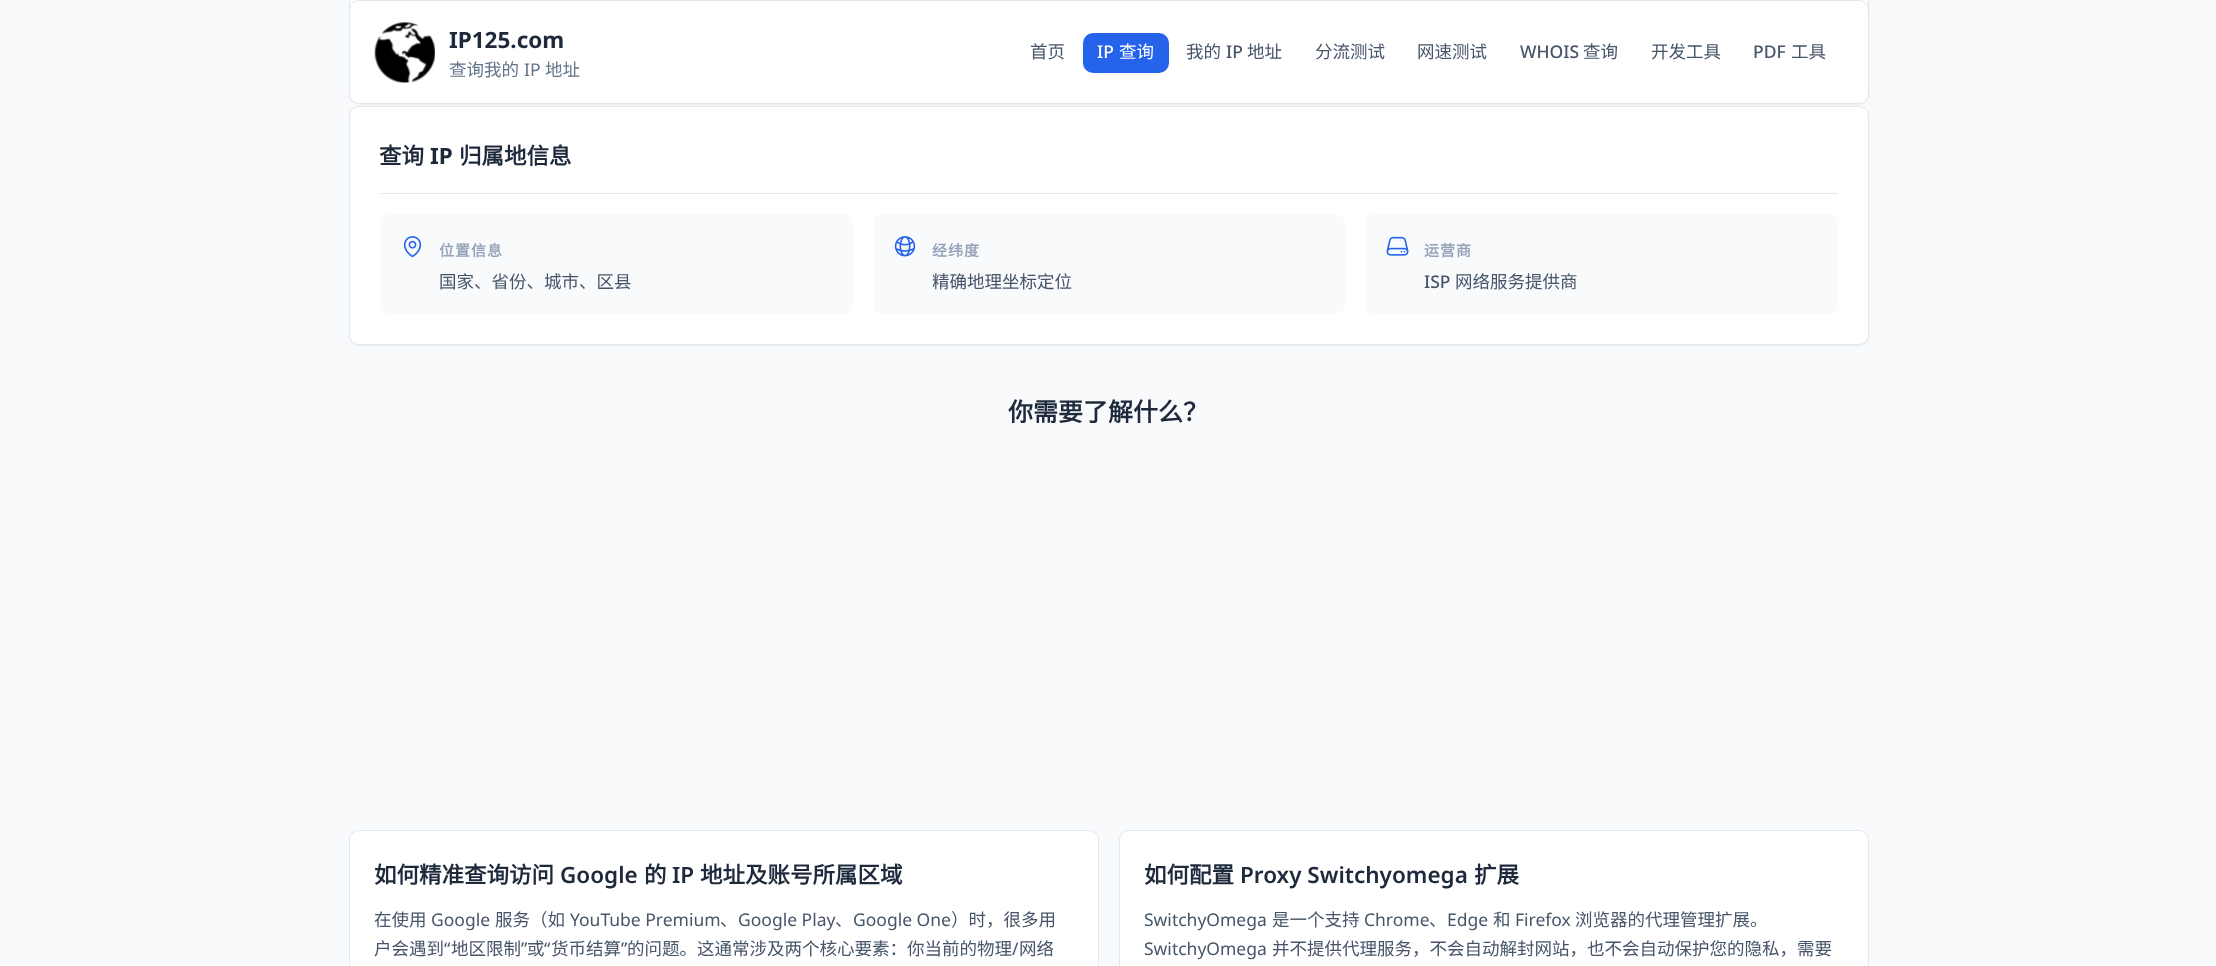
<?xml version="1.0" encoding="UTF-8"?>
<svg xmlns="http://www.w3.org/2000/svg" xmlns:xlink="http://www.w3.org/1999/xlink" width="2216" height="966">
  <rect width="100%" height="100%" fill="#f8fafc" />
  <rect x="350" width="1518" height="6" fill="#ffffff" />
  <rect x="349.5" y="-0.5" width="1519" height="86" fill="none" stroke="#e2e8f0" />
  <rect x="349" y="108" width="1520" height="238" rx="10" fill="#000000" fill-opacity="0.05" filter="blur(1px)" />
  <rect x="349.5" y="106.5" width="1519" height="238" rx="9.5" fill="#ffffff" stroke="#e2e8f0" />
  <rect x="349" y="1" width="1520" height="104" rx="10" fill="#000000" fill-opacity="0.05" filter="blur(1px)" />
  <rect x="349.5" y="0.5" width="1519" height="103" rx="9.5" fill="#ffffff" stroke="#e2e8f0" />
  <image x="374" y="22" width="61" height="61" xlink:href="image1.png" />
  <rect x="1083" y="33" width="86" height="40" rx="10" fill="#2563eb" />
  <rect x="380" y="193" width="1458" height="1" fill="#e2e8f0" />
  <rect x="380" y="214" width="473" height="100" rx="10" fill="#f8fafc" />
  <image x="403" y="236" width="19" height="22" xlink:href="image2.png" />
  <rect x="873" y="214" width="472" height="100" rx="10" fill="#f8fafc" />
  <image x="894" y="236" width="22" height="21" xlink:href="image3.png" />
  <rect x="1365" y="214" width="473" height="100" rx="10" fill="#f8fafc" />
  <image x="1386" y="236" width="23" height="20" xlink:href="image4.png" />
  <rect x="349.5" y="830.5" width="749" height="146" rx="9.5" fill="#ffffff" stroke="#e2e8f0" />
  <rect x="1119.5" y="830.5" width="749" height="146" rx="9.5" fill="#ffffff" stroke="#e2e8f0" />
  <text x="449" y="48" style="font-family: Noto Sans; font-size: 22.5px; font-weight: bold; fill: #1e293b">IP125.com</text>
  <text x="449" y="76" style="font-family: Noto Sans CJK SC; font-size: 17.5px; fill: #64748b">查询我的</text>
  <text x="524" y="76" style="font-family: Noto Sans; font-size: 17.5px; fill: #64748b">IP</text>
  <text x="545" y="76" style="font-family: Noto Sans CJK SC; font-size: 17.5px; fill: #64748b">地址</text>
  <text x="1030" y="58" style="font-family: Noto Sans CJK SC; font-size: 17.5px; fill: #475569">首页</text>
  <text x="1097" y="58" style="font-family: Noto Sans; font-size: 17.5px; font-weight: 500; fill: #ffffff">IP</text>
  <text x="1119" y="58" style="font-family: Noto Sans CJK SC; font-size: 17.5px; fill: #ffffff">查询</text>
  <text x="1186" y="58" style="font-family: Noto Sans CJK SC; font-size: 17.5px; fill: #475569">我的</text>
  <text x="1226" y="58" style="font-family: Noto Sans; font-size: 17.5px; font-weight: 500; fill: #475569">IP</text>
  <text x="1247" y="58" style="font-family: Noto Sans CJK SC; font-size: 17.5px; fill: #475569">地址</text>
  <text x="1315" y="58" style="font-family: Noto Sans CJK SC; font-size: 17.5px; fill: #475569">分流测试</text>
  <text x="1417" y="58" style="font-family: Noto Sans CJK SC; font-size: 17.5px; fill: #475569">网速测试</text>
  <text x="1520" y="58" style="font-family: Noto Sans; font-size: 17.5px; font-weight: 500; fill: #475569">WHOIS</text>
  <text x="1583" y="58" style="font-family: Noto Sans CJK SC; font-size: 17.5px; fill: #475569">查询</text>
  <text x="1651" y="58" style="font-family: Noto Sans CJK SC; font-size: 17.5px; fill: #475569">开发工具</text>
  <text x="1753" y="58" style="font-family: Noto Sans; font-size: 17.5px; font-weight: 500; fill: #475569">PDF</text>
  <text x="1791" y="58" style="font-family: Noto Sans CJK SC; font-size: 17.5px; fill: #475569">工具</text>
  <text x="379" y="164" style="font-family: Noto Sans CJK SC; font-size: 22.5px; font-weight: bold; fill: #1e293b">查询</text>
  <text x="430" y="164" style="font-family: Noto Sans; font-size: 22.5px; font-weight: bold; fill: #1e293b">IP</text>
  <text x="459" y="164" style="font-family: Noto Sans CJK SC; font-size: 22.5px; font-weight: bold; fill: #1e293b">归属地信息</text>
  <text x="439" y="256" style="font-family: Noto Sans CJK SC; font-size: 15px; font-weight: bold; letter-spacing: 1px; fill: #94a3b8">位置信息</text>
  <text x="439" y="288" style="font-family: Noto Sans CJK SC; font-size: 17.5px; fill: #475569">国家、省份、城市、区县</text>
  <text x="932" y="256" style="font-family: Noto Sans CJK SC; font-size: 15px; font-weight: bold; letter-spacing: 1px; fill: #94a3b8">经纬度</text>
  <text x="932" y="288" style="font-family: Noto Sans CJK SC; font-size: 17.5px; fill: #475569">精确地理坐标定位</text>
  <text x="1424" y="256" style="font-family: Noto Sans CJK SC; font-size: 15px; font-weight: bold; letter-spacing: 1px; fill: #94a3b8">运营商</text>
  <text x="1424" y="288" style="font-family: Noto Sans; font-size: 17.5px; font-weight: 500; fill: #475569">ISP</text>
  <text x="1455" y="288" style="font-family: Noto Sans CJK SC; font-size: 17.5px; fill: #475569">网络服务提供商</text>
  <text x="1008" y="421" style="font-family: Noto Sans CJK SC; font-size: 25px; font-weight: bold; fill: #1e293b">你需要了解什么？</text>
  <text x="374" y="883" style="font-family: Noto Sans CJK SC; font-size: 22.5px; font-weight: bold; fill: #1e293b">如何精准查询访问</text>
  <text x="560" y="883" style="font-family: Noto Sans; font-size: 22.5px; font-weight: 600; fill: #1e293b">Google</text>
  <text x="644" y="883" style="font-family: Noto Sans CJK SC; font-size: 22.5px; font-weight: bold; fill: #1e293b">的</text>
  <text x="672" y="883" style="font-family: Noto Sans; font-size: 22.5px; font-weight: 600; fill: #1e293b">IP</text>
  <text x="700" y="883" style="font-family: Noto Sans CJK SC; font-size: 22.5px; font-weight: bold; fill: #1e293b">地址及账号所属区域</text>
  <text x="374" y="926" style="font-family: Noto Sans CJK SC; font-size: 17.5px; fill: #475569">在使用</text>
  <text x="431" y="926" style="font-family: Noto Sans; font-size: 17.5px; fill: #475569">Google</text>
  <text x="495" y="926" style="font-family: Noto Sans CJK SC; font-size: 17.5px; fill: #475569">服务（如</text>
  <text x="570" y="926" style="font-family: Noto Sans; font-size: 17.5px; fill: #475569">YouTube Premium</text>
  <text x="720" y="926" style="font-family: Noto Sans CJK SC; font-size: 17.5px; fill: #475569">、</text>
  <text x="738" y="926" style="font-family: Noto Sans; font-size: 17.5px; fill: #475569">Google Play</text>
  <text x="835" y="926" style="font-family: Noto Sans CJK SC; font-size: 17.5px; fill: #475569">、</text>
  <text x="853" y="926" style="font-family: Noto Sans; font-size: 17.5px; fill: #475569">Google One</text>
  <text x="951" y="926" style="font-family: Noto Sans CJK SC; font-size: 17.5px; fill: #475569">）时，很多用</text>
  <text x="374" y="955" style="font-family: Noto Sans CJK SC; font-size: 17.5px; fill: #475569">户会遇到</text>
  <text x="444" y="955" style="font-family: Noto Sans; font-size: 17.5px; fill: #475569">“</text>
  <text x="451" y="955" style="font-family: Noto Sans CJK SC; font-size: 17.5px; fill: #475569">地区限制</text>
  <text x="521" y="955" style="font-family: Noto Sans; font-size: 17.5px; fill: #475569">”</text>
  <text x="527" y="955" style="font-family: Noto Sans CJK SC; font-size: 17.5px; fill: #475569">或</text>
  <text x="544" y="955" style="font-family: Noto Sans; font-size: 17.5px; fill: #475569">“</text>
  <text x="551" y="955" style="font-family: Noto Sans CJK SC; font-size: 17.5px; fill: #475569">货币结算</text>
  <text x="621" y="955" style="font-family: Noto Sans; font-size: 17.5px; fill: #475569">”</text>
  <text x="627" y="955" style="font-family: Noto Sans CJK SC; font-size: 17.5px; fill: #475569">的问题。这通常涉及两个核心要素：你当前的物理</text>
  <text x="1012" y="955" style="font-family: Noto Sans; font-size: 17.5px; fill: #475569">/</text>
  <text x="1019" y="955" style="font-family: Noto Sans CJK SC; font-size: 17.5px; fill: #475569">网络</text>
  <text x="1144" y="883" style="font-family: Noto Sans CJK SC; font-size: 22.5px; font-weight: bold; fill: #1e293b">如何配置</text>
  <text x="1240" y="883" style="font-family: Noto Sans; font-size: 22.5px; font-weight: 600; fill: #1e293b">Proxy Switchyomega</text>
  <text x="1474" y="883" style="font-family: Noto Sans CJK SC; font-size: 22.5px; font-weight: bold; fill: #1e293b">扩展</text>
  <text x="1144" y="926" style="font-family: Noto Sans; font-size: 17.5px; fill: #475569">SwitchyOmega</text>
  <text x="1272" y="926" style="font-family: Noto Sans CJK SC; font-size: 17.5px; fill: #475569">是一个支持</text>
  <text x="1364" y="926" style="font-family: Noto Sans; font-size: 17.5px; fill: #475569">Chrome</text>
  <text x="1429" y="926" style="font-family: Noto Sans CJK SC; font-size: 17.5px; fill: #475569">、</text>
  <text x="1447" y="926" style="font-family: Noto Sans; font-size: 17.5px; fill: #475569">Edge</text>
  <text x="1493" y="926" style="font-family: Noto Sans CJK SC; font-size: 17.5px; fill: #475569">和</text>
  <text x="1515" y="926" style="font-family: Noto Sans; font-size: 17.5px; fill: #475569">Firefox</text>
  <text x="1575" y="926" style="font-family: Noto Sans CJK SC; font-size: 17.5px; fill: #475569">浏览器的代理管理扩展。</text>
  <text x="1144" y="955" style="font-family: Noto Sans; font-size: 17.5px; fill: #475569">SwitchyOmega</text>
  <text x="1272" y="955" style="font-family: Noto Sans CJK SC; font-size: 17.5px; fill: #475569">并不提供代理服务，不会自动解封网站，也不会自动保护您的隐私，需要</text>
</svg>
